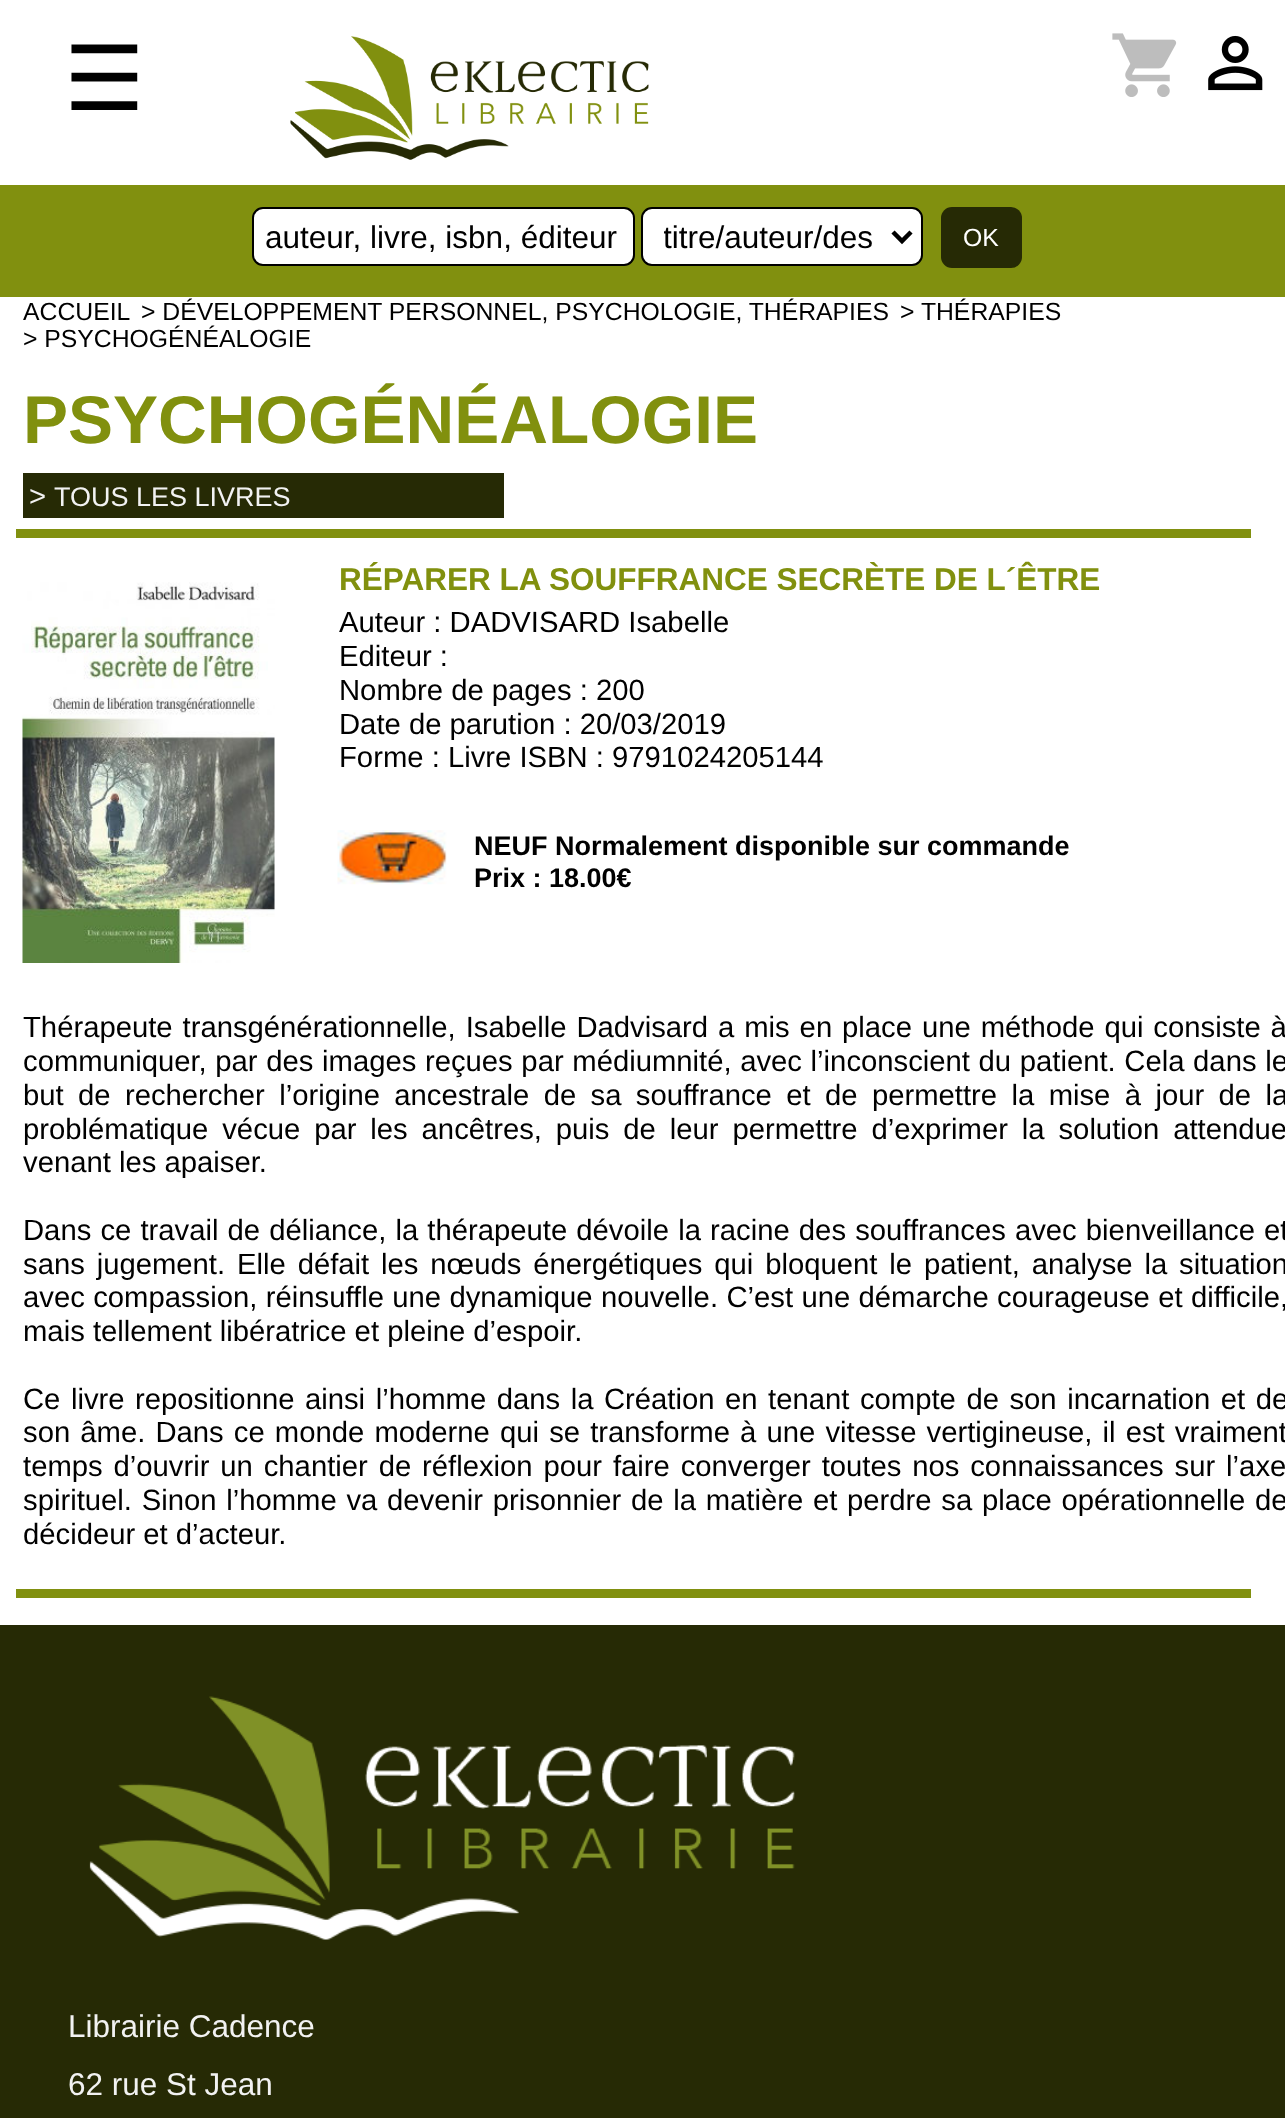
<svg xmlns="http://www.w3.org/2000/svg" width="1285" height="2118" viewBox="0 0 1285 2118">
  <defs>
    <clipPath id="clip1"><rect x="664" y="216" width="209" height="41"/></clipPath>
  </defs>
  <rect width="100%" height="100%" fill="rgb(129,144,15)"/>
  <rect x="0" y="0" width="1285" height="185" fill="rgb(255,255,255)"/>
  <text x="64" y="110" font-family="DejaVu Sans" font-size="90" fill="rgb(0,0,0)">☰</text>
  <image x="290" y="36" width="359" height="124" href="pic1.png"/>
  <image x="1112" y="33" width="65" height="64" href="pic2.png"/>
  <image x="1208" y="35" width="55" height="56" href="pic3.png"/>
  <rect x="253" y="208" width="381" height="57" rx="10" fill="rgb(255,255,255)" stroke="rgb(0,0,0)" stroke-width="2"/>
  <text x="265" y="248" font-family="Liberation Sans" font-size="31.5" fill="rgb(0,0,0)">auteur, livre, isbn, éditeur</text>
  <rect x="642" y="208" width="280" height="57" rx="10" fill="rgb(255,255,255)" stroke="rgb(0,0,0)" stroke-width="2"/>
  <path d="M893 232L902 241L911 232" fill="none" stroke="rgb(0,0,0)" stroke-width="4.5"/>
  <g clip-path="url(#clip1)">
    <text x="663" y="248" font-family="Liberation Sans" font-size="31.5" fill="rgb(0,0,0)">titre/auteur/des</text>
  </g>
  <rect x="941" y="207" width="81" height="61" rx="11" fill="rgb(38,42,5)"/>
  <text x="963" y="246" font-family="Liberation Sans" font-size="24.75" fill="rgb(255,255,255)">OK</text>
  <rect x="0" y="297" width="1285" height="1328" fill="rgb(255,255,255)"/>
  <g font-family="Liberation Sans" font-size="24.75" fill="rgb(0,0,0)">
    <text x="23" y="320">ACCUEIL</text>
    <text x="141" y="320">&gt; DÉVELOPPEMENT PERSONNEL, PSYCHOLOGIE, THÉRAPIES</text>
    <text x="900" y="320">&gt; THÉRAPIES</text>
    <text x="23" y="347">&gt; PSYCHOGÉNÉALOGIE</text>
  </g>
  <text x="23" y="443" font-family="Liberation Sans" font-size="67.5" font-weight="bold" fill="rgb(129,144,14)">PSYCHOGÉNÉALOGIE</text>
  <rect x="23" y="473" width="481" height="45" fill="rgb(38,42,5)"/>
  <text x="29" y="506" font-family="Liberation Sans" font-size="29.25" fill="rgb(242,242,242)">&gt;</text>
  <text x="54" y="506" font-family="Liberation Sans" font-size="27" fill="rgb(242,242,242)">TOUS LES LIVRES</text>
  <rect x="16" y="529" width="1235" height="9" fill="rgb(129,144,15)"/>
  <image x="22" y="582" width="253" height="381" href="pic4.png"/>
  <text x="339" y="590" font-family="Liberation Sans" font-size="31.5" font-weight="bold" fill="rgb(129,144,14)">RÉPARER LA SOUFFRANCE SECRÈTE DE L´ÊTRE</text>
  <g font-family="Liberation Sans" font-size="29.25" fill="rgb(0,0,0)">
    <text>
      <tspan x="339" y="632">Auteur : DADVISARD Isabelle</tspan>
      <tspan x="339" y="666">Editeur :</tspan>
      <tspan x="339" y="700">Nombre de pages : 200</tspan>
      <tspan x="339" y="734">Date de parution : 20/03/2019</tspan>
      <tspan x="339" y="767">Forme : Livre ISBN : 9791024205144</tspan>
    </text>
  </g>
  <image x="337" y="830" width="110" height="55" href="pic5.png"/>
  <g font-family="Liberation Sans" font-size="27" font-weight="bold" fill="rgb(0,0,0)">
    <text>
      <tspan x="474" y="855">NEUF Normalement disponible sur commande</tspan>
      <tspan x="474" y="887">Prix : 18.00€</tspan>
    </text>
  </g>
  <g font-family="Liberation Sans" font-size="29.25" fill="rgb(0,0,0)">
    <text>
      <tspan x="23" y="1037" word-spacing="1.8">Thérapeute transgénérationnelle, Isabelle Dadvisard a mis en place une méthode qui consiste à</tspan>
      <tspan x="23" y="1071" word-spacing="0.5">communiquer, par des images reçues par médiumnité, avec l’inconscient du patient. Cela dans le</tspan>
      <tspan x="23" y="1105" word-spacing="6.25">but de rechercher l’origine ancestrale de sa souffrance et de permettre la mise à jour de la</tspan>
      <tspan x="23" y="1139" word-spacing="5.75">problématique vécue par les ancêtres, puis de leur permettre d’exprimer la solution attendue</tspan>
      <tspan x="23" y="1172">venant les apaiser.</tspan>
    </text>
    <text>
      <tspan x="23" y="1240" word-spacing="1">Dans ce travail de déliance, la thérapeute dévoile la racine des souffrances avec bienveillance et</tspan>
      <tspan x="23" y="1274" word-spacing="3.75">sans jugement. Elle défait les nœuds énergétiques qui bloquent le patient, analyse la situation</tspan>
      <tspan x="23" y="1307" word-spacing="0.25">avec compassion, réinsuffle une dynamique nouvelle. C’est une démarche courageuse et difficile,</tspan>
      <tspan x="23" y="1341">mais tellement libératrice et pleine d’espoir.</tspan>
    </text>
    <text>
      <tspan x="23" y="1409" word-spacing="2.4">Ce livre repositionne ainsi l’homme dans la Création en tenant compte de son incarnation et de</tspan>
      <tspan x="23" y="1442" word-spacing="2">son âme. Dans ce monde moderne qui se transforme à une vitesse vertigineuse, il est vraiment</tspan>
      <tspan x="23" y="1476" word-spacing="2.75">temps d’ouvrir un chantier de réflexion pour faire converger toutes nos connaissances sur l’axe</tspan>
      <tspan x="23" y="1510" word-spacing="1.6">spirituel. Sinon l’homme va devenir prisonnier de la matière et perdre sa place opérationnelle de</tspan>
      <tspan x="23" y="1544">décideur et d’acteur.</tspan>
    </text>
  </g>
  <rect x="16" y="1589" width="1235" height="9" fill="rgb(129,144,15)"/>
  <rect x="0" y="1625" width="1285" height="493" fill="rgb(38,42,5)"/>
  <image x="89" y="1696" width="706" height="244" href="pic6.png"/>
  <g font-family="Liberation Sans" font-size="31.5" fill="rgb(242,242,242)">
    <text>
      <tspan x="68" y="2037">Librairie Cadence</tspan>
      <tspan x="68" y="2095">62 rue St Jean</tspan>
    </text>
  </g>
</svg>
